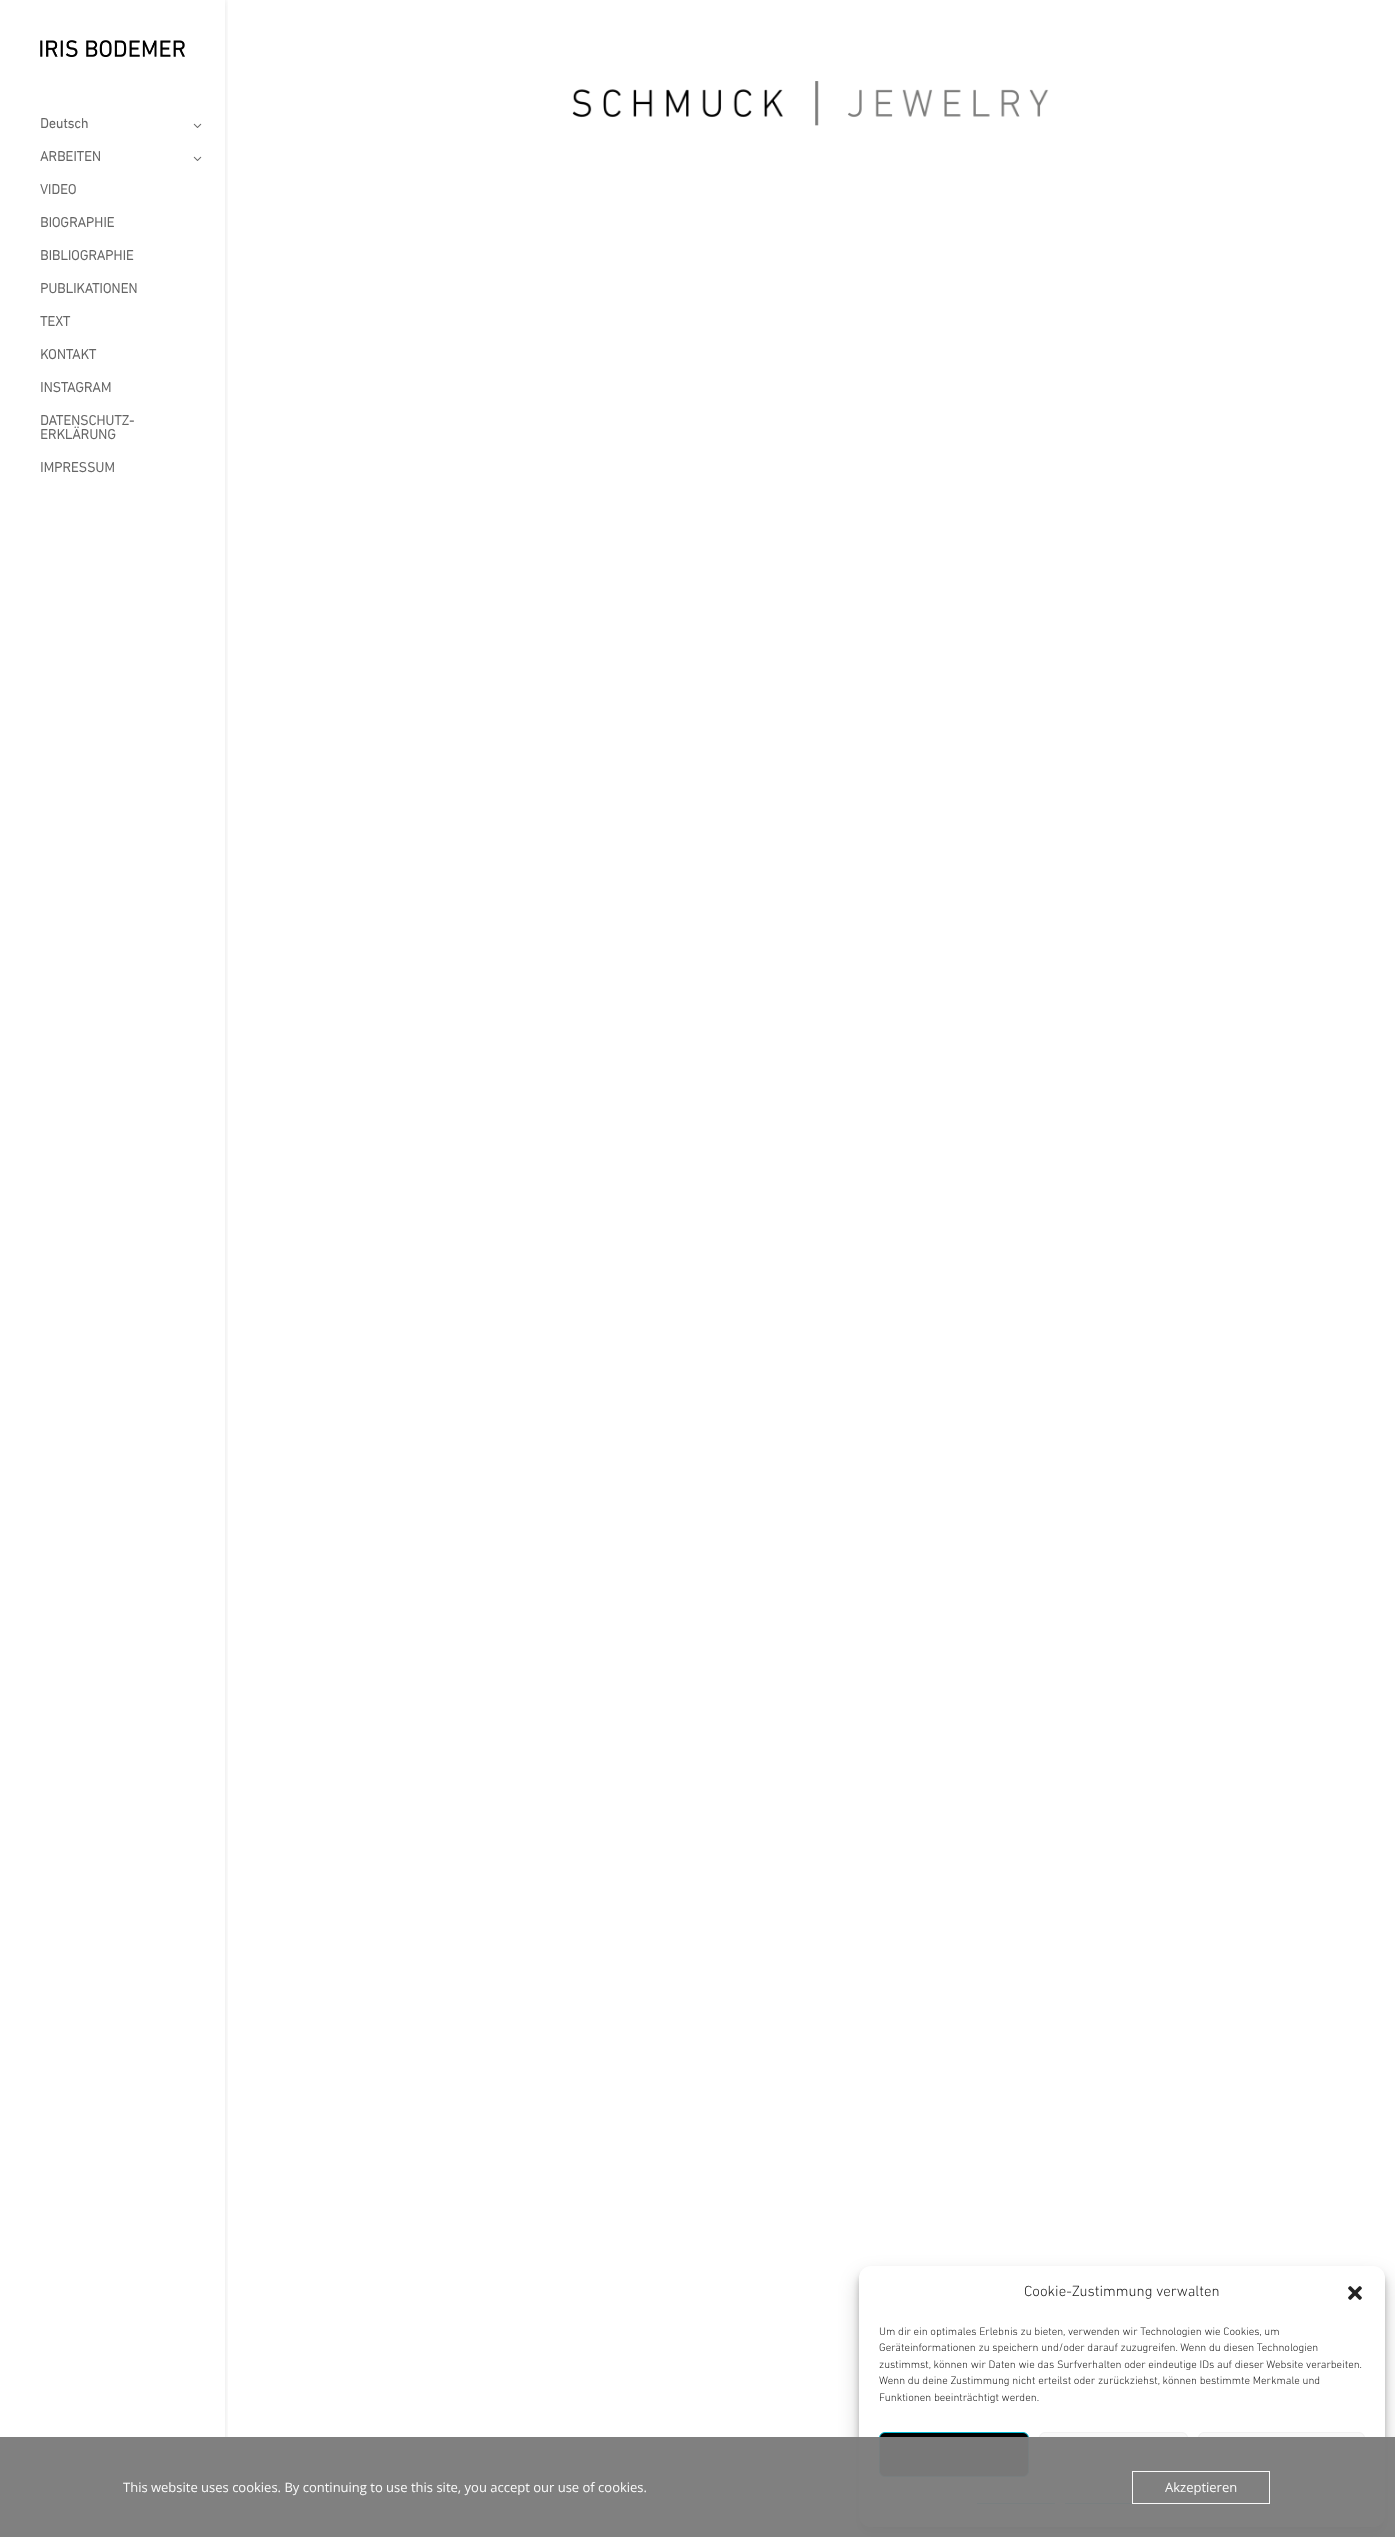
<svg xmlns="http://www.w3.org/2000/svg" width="1395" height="2537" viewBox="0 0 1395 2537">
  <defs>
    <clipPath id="clip1"><rect x="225" y="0" width="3" height="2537"/></clipPath>
  </defs>
  <rect width="100%" height="100%" fill="rgb(255,255,255)"/>
  <image x="572" y="81" width="477" height="45" href="pic1.png"/>
  <g clip-path="url(#clip1)">
    <rect x="0" y="0" width="225" height="2537" fill="rgba(0,0,0,0.1)" filter="blur(3.5px)"/>
  </g>
  <image x="40" y="40" width="145" height="17" href="pic2.png"/>
  <text x="40" y="128" font-family="DIN Next" font-size="14" font-weight="bold" fill="rgb(102,102,102)">Deutsch</text>
  <image x="193" y="123" width="9" height="5" href="pic3.png"/>
  <text x="40" y="161" font-family="DIN Next" font-size="14" font-weight="bold" fill="rgb(102,102,102)">ARBEITEN</text>
  <image x="193" y="156" width="9" height="5" href="pic3.png"/>
  <g font-family="DIN Next" font-size="14" font-weight="bold" fill="rgb(102,102,102)">
    <text x="40" y="194">VIDEO</text>
    <text x="40" y="227">BIOGRAPHIE</text>
    <text x="40" y="260">BIBLIOGRAPHIE</text>
    <text x="40" y="293">PUBLIKATIONEN</text>
    <text x="40" y="326">TEXT</text>
    <text x="40" y="359">KONTAKT</text>
    <text x="40" y="392">INSTAGRAM</text>
    <text>
      <tspan x="40" y="425">DATENSCHUTZ-</tspan>
      <tspan x="40" y="439">ERKLÄRUNG</tspan>
    </text>
    <text x="40" y="472">IMPRESSUM</text>
  </g>
  <rect x="859" y="2272" width="526" height="261" rx="12" fill="rgba(0,0,0,0.23)" filter="blur(3px)"/>
  <rect x="859" y="2276" width="526" height="261" rx="12" fill="rgba(0,0,0,0.19)" filter="blur(10px)"/>
  <rect x="859" y="2266" width="526" height="261" rx="12" fill="rgb(255,255,255)"/>
  <text x="1024" y="2296" font-family="DIN Next" font-size="15" font-weight="300" fill="rgb(34,34,34)">Cookie-Zustimmung verwalten</text>
  <image x="1348" y="2286" width="14" height="14" href="pic4.png"/>
  <g font-family="DIN Next" font-size="11" font-weight="300" fill="rgb(34,34,34)">
    <text>
      <tspan x="879" y="2335">Um dir ein optimales Erlebnis zu bieten, verwenden wir Technologien wie Cookies, um</tspan>
      <tspan x="879" y="2351">Geräteinformationen zu speichern und/oder darauf zuzugreifen. Wenn du diesen Technologien</tspan>
      <tspan x="879" y="2368">zustimmst, können wir Daten wie das Surfverhalten oder eindeutige IDs auf dieser Website verarbeiten.</tspan>
      <tspan x="879" y="2384">Wenn du deine Zustimmung nicht erteilst oder zurückziehst, können bestimmte Merkmale und</tspan>
      <tspan x="879" y="2401">Funktionen beeinträchtigt werden.</tspan>
    </text>
  </g>
  <rect x="879.5" y="2432.5" width="149" height="44" rx="5.5" fill="rgb(0,0,0)" stroke="rgb(0,191,216)"/>
  <rect x="1039.5" y="2432.5" width="148" height="44" rx="5.5" fill="rgb(249,249,249)" stroke="rgb(242,242,242)"/>
  <rect x="1198.5" y="2432.5" width="166" height="44" rx="5.5" fill="rgb(249,249,249)" stroke="rgb(242,242,242)"/>
  <rect x="977" y="2503" width="78" height="1" fill="rgb(0,191,216)"/>
  <rect x="1065" y="2503" width="134" height="1" fill="rgb(0,191,216)"/>
  <rect x="1209" y="2503" width="58" height="1" fill="rgb(0,191,216)"/>
  <rect x="0" y="2437" width="1395" height="100" fill="rgba(124,124,124,0.97)"/>
  <text x="123" y="2492" font-family="Open Sans" font-size="13" fill="rgb(251,251,251)">This website uses cookies. By continuing to use this site, you accept our use of cookies.</text>
  <rect x="1132.5" y="2471.5" width="137" height="32" fill="none" stroke="rgba(255,255,255,0.97)"/>
  <text x="1165" y="2492" font-family="Open Sans" font-size="13" fill="rgb(251,251,251)">Akzeptieren</text>
</svg>
